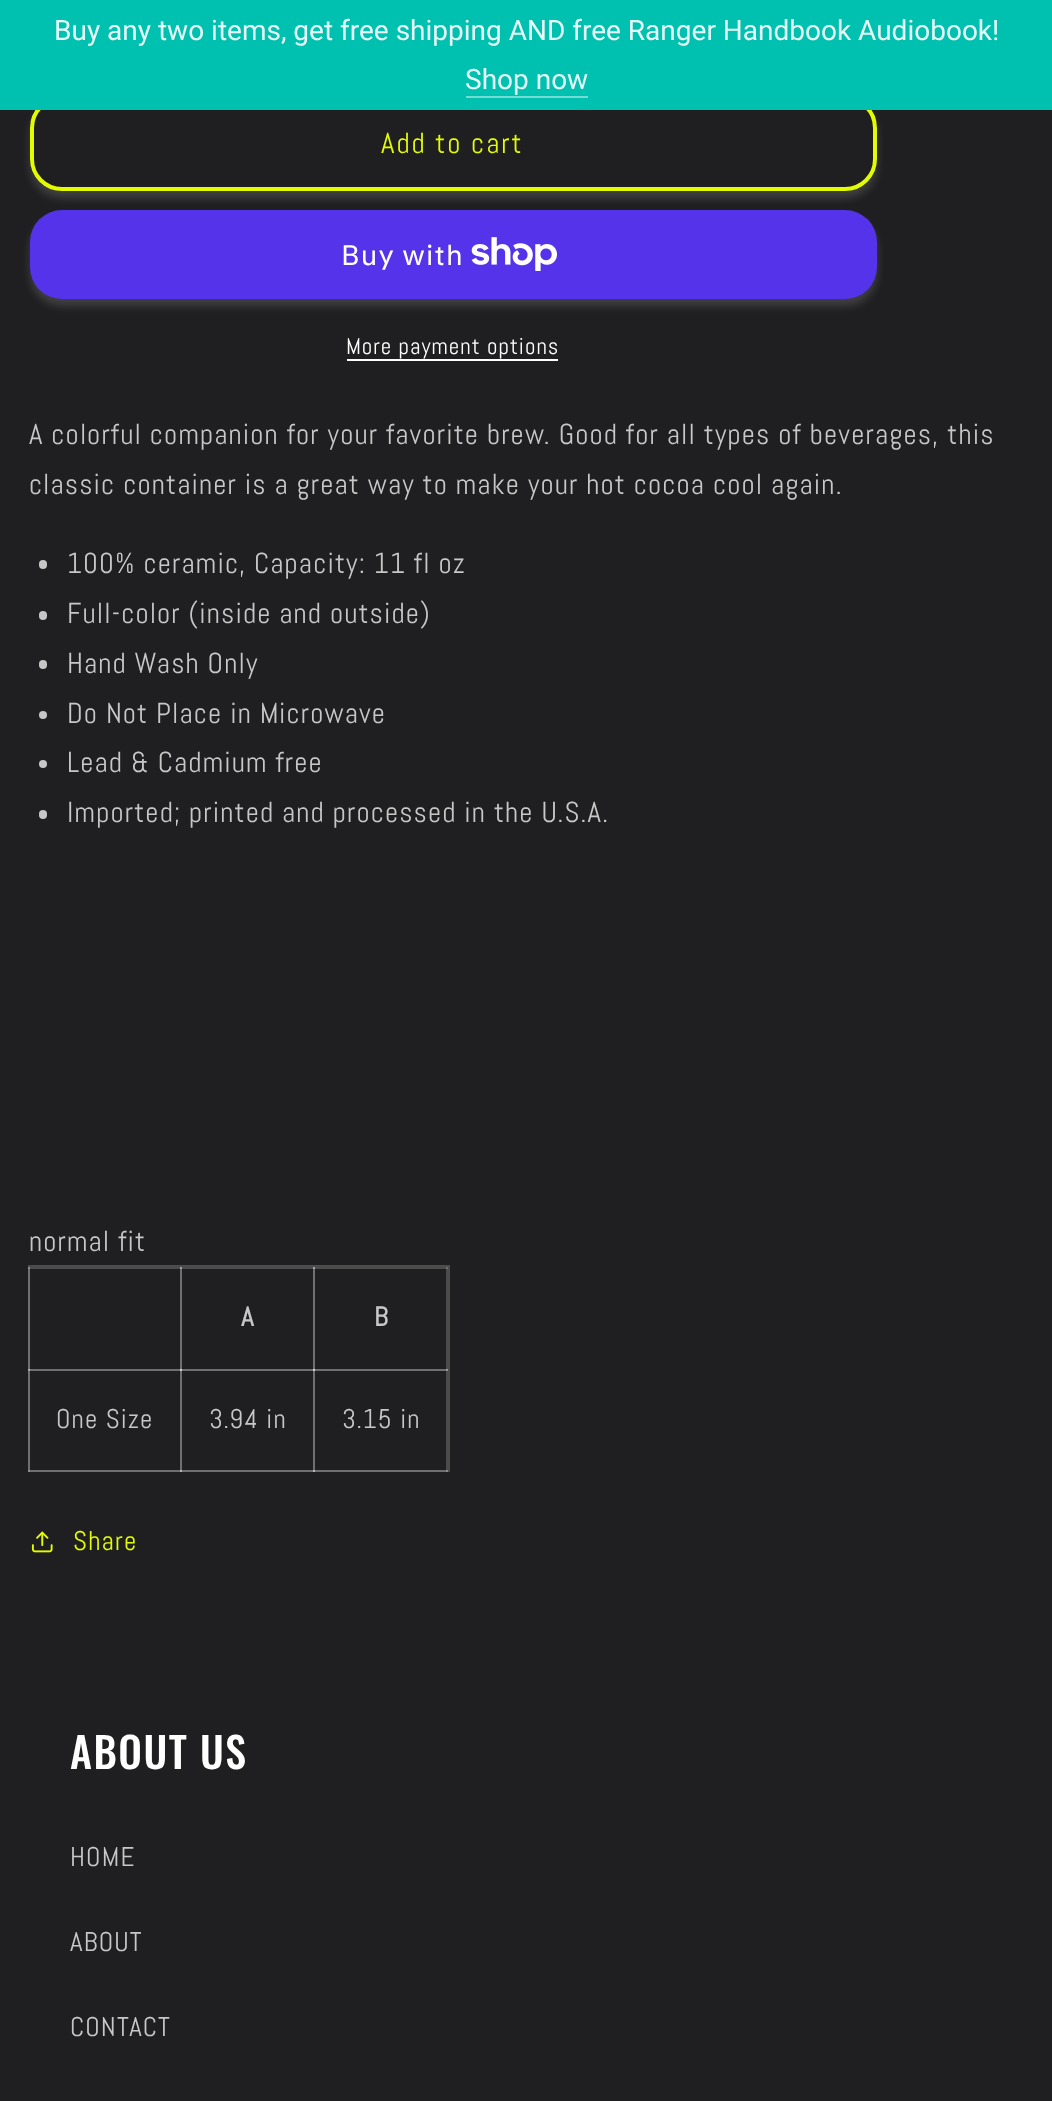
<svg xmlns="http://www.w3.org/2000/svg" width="1052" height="2101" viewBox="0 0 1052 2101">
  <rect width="100%" height="100%" fill="rgb(31,31,33)"/>
  <rect x="30" y="103" width="847" height="95" rx="32" fill="rgba(255,255,255,0.15)" filter="blur(4.5px)"/>
  <rect x="30" y="96" width="847" height="95" rx="32" fill="rgb(31,31,33)"/>
  <rect x="32" y="98" width="843" height="91" rx="30" fill="none" stroke="rgb(31,31,33)" stroke-width="4"/>
  <rect x="32" y="98" width="843" height="91" rx="30" fill="none" stroke="rgb(227,252,2)" stroke-width="4"/>
  <rect x="0" y="0" width="1052" height="110" fill="rgb(0,192,175)"/>
  <g font-family="Roboto" font-size="28" fill="rgb(230,249,247)">
    <text x="54" y="40">Buy any two items, get free shipping AND free Ranger Handbook Audiobook!</text>
    <text x="465" y="89">Shop now</text>
  </g>
  <rect x="466" y="96" width="122" height="2" fill="rgb(115,221,211)"/>
  <text x="381" y="153" font-family="Abel" font-size="28.9" letter-spacing="2" fill="rgb(227,252,2)">Add to cart</text>
  <rect x="30" y="217" width="847" height="89" rx="32" fill="rgba(255,255,255,0.15)" filter="blur(4.5px)"/>
  <rect x="30" y="210" width="847" height="89" rx="32" fill="rgb(84,51,235)"/>
  <text x="341" y="265" font-family="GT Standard" font-size="28" letter-spacing="1.15" fill="rgb(255,255,255)">Buy with</text>
  <image x="471" y="237" width="86" height="34" href="pic1.png"/>
  <text x="346" y="354" font-family="Abel" font-size="23" letter-spacing="1" fill="rgb(255,255,255)">More payment options</text>
  <rect x="347" y="359" width="211" height="2" fill="rgb(255,255,255)"/>
  <g font-family="Abel" font-size="28.9" letter-spacing="1.15" fill="rgb(199,199,200)">
    <text>
      <tspan x="29" y="444">A colorful companion for your favorite brew. Good for all types of beverages, this</tspan>
      <tspan x="29" y="494">classic container is a great way to make your hot cocoa cool again.</tspan>
    </text>
  </g>
  <rect x="39" y="560" width="8" height="9" rx="4" fill="rgb(199,199,200)"/>
  <text x="67" y="573" font-family="Abel" font-size="28.9" letter-spacing="1.15" fill="rgb(199,199,200)">100% ceramic, Capacity: 11 fl oz</text>
  <rect x="39" y="611" width="8" height="9" rx="4" fill="rgb(199,199,200)"/>
  <text x="67" y="623" font-family="Abel" font-size="28.9" letter-spacing="1.15" fill="rgb(199,199,200)">Full-color (inside and outside)</text>
  <rect x="39" y="660" width="8" height="9" rx="4" fill="rgb(199,199,200)"/>
  <text x="67" y="673" font-family="Abel" font-size="28.9" letter-spacing="1.15" fill="rgb(199,199,200)">Hand Wash Only</text>
  <circle cx="43" cy="715" r="4" fill="rgb(199,199,200)"/>
  <text x="67" y="723" font-family="Abel" font-size="28.9" letter-spacing="1.15" fill="rgb(199,199,200)">Do Not Place in Microwave</text>
  <circle cx="43" cy="764" r="4" fill="rgb(199,199,200)"/>
  <text x="67" y="772" font-family="Abel" font-size="28.9" letter-spacing="1.15" fill="rgb(199,199,200)">Lead &amp; Cadmium free</text>
  <rect x="39" y="810" width="8" height="9" rx="4" fill="rgb(199,199,200)"/>
  <g font-family="Abel" font-size="28.9" letter-spacing="1.15" fill="rgb(199,199,200)">
    <text x="67" y="822">Imported; printed and processed in the U.S.A.</text>
    <text x="29" y="1251">normal fit</text>
  </g>
  <rect x="29" y="1266" width="420" height="205" fill="none" stroke="rgb(76,76,77)" stroke-width="2"/>
  <rect x="313" y="1267" width="135" height="2" fill="rgb(76,76,77)"/>
  <rect x="313" y="1369" width="135" height="2" fill="rgb(76,76,77)"/>
  <rect x="446" y="1369" width="2" height="103" fill="rgba(255,255,255,0.2)"/>
  <rect x="446" y="1267" width="2" height="103" fill="rgba(255,255,255,0.2)"/>
  <rect x="313" y="1470" width="135" height="2" fill="rgba(255,255,255,0.2)"/>
  <rect x="313" y="1369" width="2" height="103" fill="rgba(255,255,255,0.2)"/>
  <rect x="180" y="1369" width="135" height="2" fill="rgba(255,255,255,0.2)"/>
  <rect x="313" y="1369" width="2" height="103" fill="rgba(255,255,255,0.2)"/>
  <rect x="313" y="1369" width="135" height="2" fill="rgba(255,255,255,0.2)"/>
  <rect x="313" y="1267" width="2" height="103" fill="rgba(255,255,255,0.2)"/>
  <rect x="180" y="1267" width="135" height="2" fill="rgba(255,255,255,0.2)"/>
  <rect x="313" y="1267" width="2" height="103" fill="rgba(255,255,255,0.2)"/>
  <rect x="180" y="1470" width="135" height="2" fill="rgba(255,255,255,0.2)"/>
  <rect x="180" y="1369" width="2" height="103" fill="rgba(255,255,255,0.2)"/>
  <rect x="28" y="1369" width="154" height="2" fill="rgba(255,255,255,0.2)"/>
  <rect x="180" y="1369" width="2" height="103" fill="rgba(255,255,255,0.2)"/>
  <rect x="180" y="1369" width="135" height="2" fill="rgba(255,255,255,0.2)"/>
  <rect x="180" y="1267" width="2" height="103" fill="rgba(255,255,255,0.2)"/>
  <rect x="28" y="1267" width="154" height="2" fill="rgba(255,255,255,0.2)"/>
  <rect x="180" y="1267" width="2" height="103" fill="rgba(255,255,255,0.2)"/>
  <rect x="28" y="1470" width="154" height="2" fill="rgba(255,255,255,0.2)"/>
  <rect x="28" y="1369" width="2" height="103" fill="rgba(255,255,255,0.2)"/>
  <rect x="28" y="1369" width="154" height="2" fill="rgba(255,255,255,0.2)"/>
  <rect x="28" y="1267" width="2" height="103" fill="rgba(255,255,255,0.2)"/>
  <g font-family="Abel" font-size="27" font-weight="bold" letter-spacing="1.15" fill="rgb(199,199,200)">
    <text x="241" y="1326">A</text>
    <text x="374" y="1326">B</text>
  </g>
  <g font-family="Abel" font-size="27" letter-spacing="1.15" fill="rgb(199,199,200)">
    <text x="56" y="1428">One Size</text>
    <text x="209" y="1428">3.94 in</text>
    <text x="342" y="1428">3.15 in</text>
  </g>
  <image x="31" y="1531" width="22" height="22" href="pic2.png"/>
  <text x="73" y="1550" font-family="Abel" font-size="27" letter-spacing="1.15" fill="rgb(227,252,2)">Share</text>
  <text x="70" y="1769" font-family="Oswald" font-size="42" font-weight="500" letter-spacing="1.5" fill="rgb(255,255,255)">ABOUT US</text>
  <g font-family="Abel" font-size="27" letter-spacing="1.15" fill="rgb(199,199,200)">
    <text x="70" y="1866">HOME</text>
    <text x="70" y="1951">ABOUT</text>
    <text x="70" y="2036">CONTACT</text>
  </g>
</svg>
